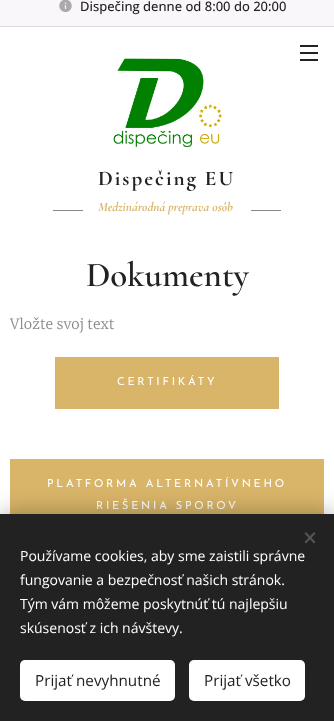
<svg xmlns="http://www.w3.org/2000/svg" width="334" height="721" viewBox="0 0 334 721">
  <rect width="100%" height="100%" fill="rgb(255,255,255)"/>
  <rect x="0" y="0" width="334" height="26" fill="rgb(249,247,250)"/>
  <image x="59" y="0" width="13" height="12" href="pic1.png"/>
  <text x="80" y="11" font-family="Open Sans" font-size="13" font-weight="500" fill="rgb(34,34,34)">Dispečing denne od 8:00 do 20:00</text>
  <rect x="0" y="26" width="334" height="1" fill="rgb(219,219,219)"/>
  <rect x="300" y="52" width="18" height="2" fill="rgb(34,34,34)"/>
  <rect x="300" y="45" width="18" height="2" fill="rgb(34,34,34)"/>
  <rect x="300" y="59" width="18" height="2" fill="rgb(34,34,34)"/>
  <image x="113" y="58" width="109" height="90" href="pic2.png"/>
  <text x="98" y="185" font-family="Cormorant" font-size="21" font-weight="bold" letter-spacing="2" fill="rgb(34,34,34)">Dispečing EU</text>
  <rect x="53" y="210" width="30" height="1" fill="rgb(136,136,136)"/>
  <text x="98" y="211" font-family="Cormorant" font-size="13" font-weight="bold" font-style="italic" fill="rgb(217,181,105)">Medzinárodná preprava osôb</text>
  <rect x="251" y="210" width="30" height="1" fill="rgb(136,136,136)"/>
  <text x="86" y="286" font-family="Cormorant" font-size="35" font-weight="600" fill="rgb(34,34,34)">Dokumenty</text>
  <text x="10" y="329" font-family="Merriweather" font-size="14" font-weight="300" fill="rgb(136,136,136)">Vložte svoj text</text>
  <rect x="55" y="357" width="224" height="52" fill="rgb(217,181,105)"/>
  <text x="117" y="385" font-family="Josefin Sans" font-size="11" letter-spacing="2.75" fill="rgb(255,255,255)">CERTIFIKÁTY</text>
  <rect x="10" y="459" width="314" height="55" fill="rgb(217,181,105)"/>
  <g font-family="Josefin Sans" font-size="11" letter-spacing="2.75" fill="rgb(255,255,255)">
    <text x="47" y="487">PLATFORMA ALTERNATÍVNEHO</text>
    <text x="96" y="509">RIEŠENIA SPOROV</text>
  </g>
  <rect x="0" y="514" width="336" height="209" fill="rgba(0,0,0,0.33)" filter="blur(12.5px)"/>
  <rect x="0" y="514" width="334" height="207" fill="rgb(34,34,34)"/>
  <path d="M304.5 542L314 532L315.5 533.5L306 543.5Z" fill="rgb(85,85,85)"/>
  <path d="M306 532L315.5 542L314 543.5L304.5 533.5Z" fill="rgb(85,85,85)"/>
  <g font-family="Open Sans" font-size="14" fill="rgb(255,255,255)">
    <text>
      <tspan x="20" y="561">Používame cookies, aby sme zaistili správne</tspan>
      <tspan x="20" y="585">fungovanie a bezpečnosť našich stránok.</tspan>
      <tspan x="20" y="609">Tým vám môžeme poskytnúť tú najlepšiu</tspan>
      <tspan x="20" y="633">skúsenosť z ich návštevy.</tspan>
    </text>
  </g>
  <rect x="20" y="660" width="155" height="41" rx="5" fill="rgb(255,255,255)"/>
  <text x="35" y="686" font-family="Open Sans" font-size="15.25" fill="rgb(34,34,34)">Prijať nevyhnutné</text>
  <rect x="189" y="660" width="116" height="41" rx="5" fill="rgb(255,255,255)"/>
  <text x="204" y="686" font-family="Open Sans" font-size="15.25" fill="rgb(34,34,34)">Prijať všetko</text>
</svg>
